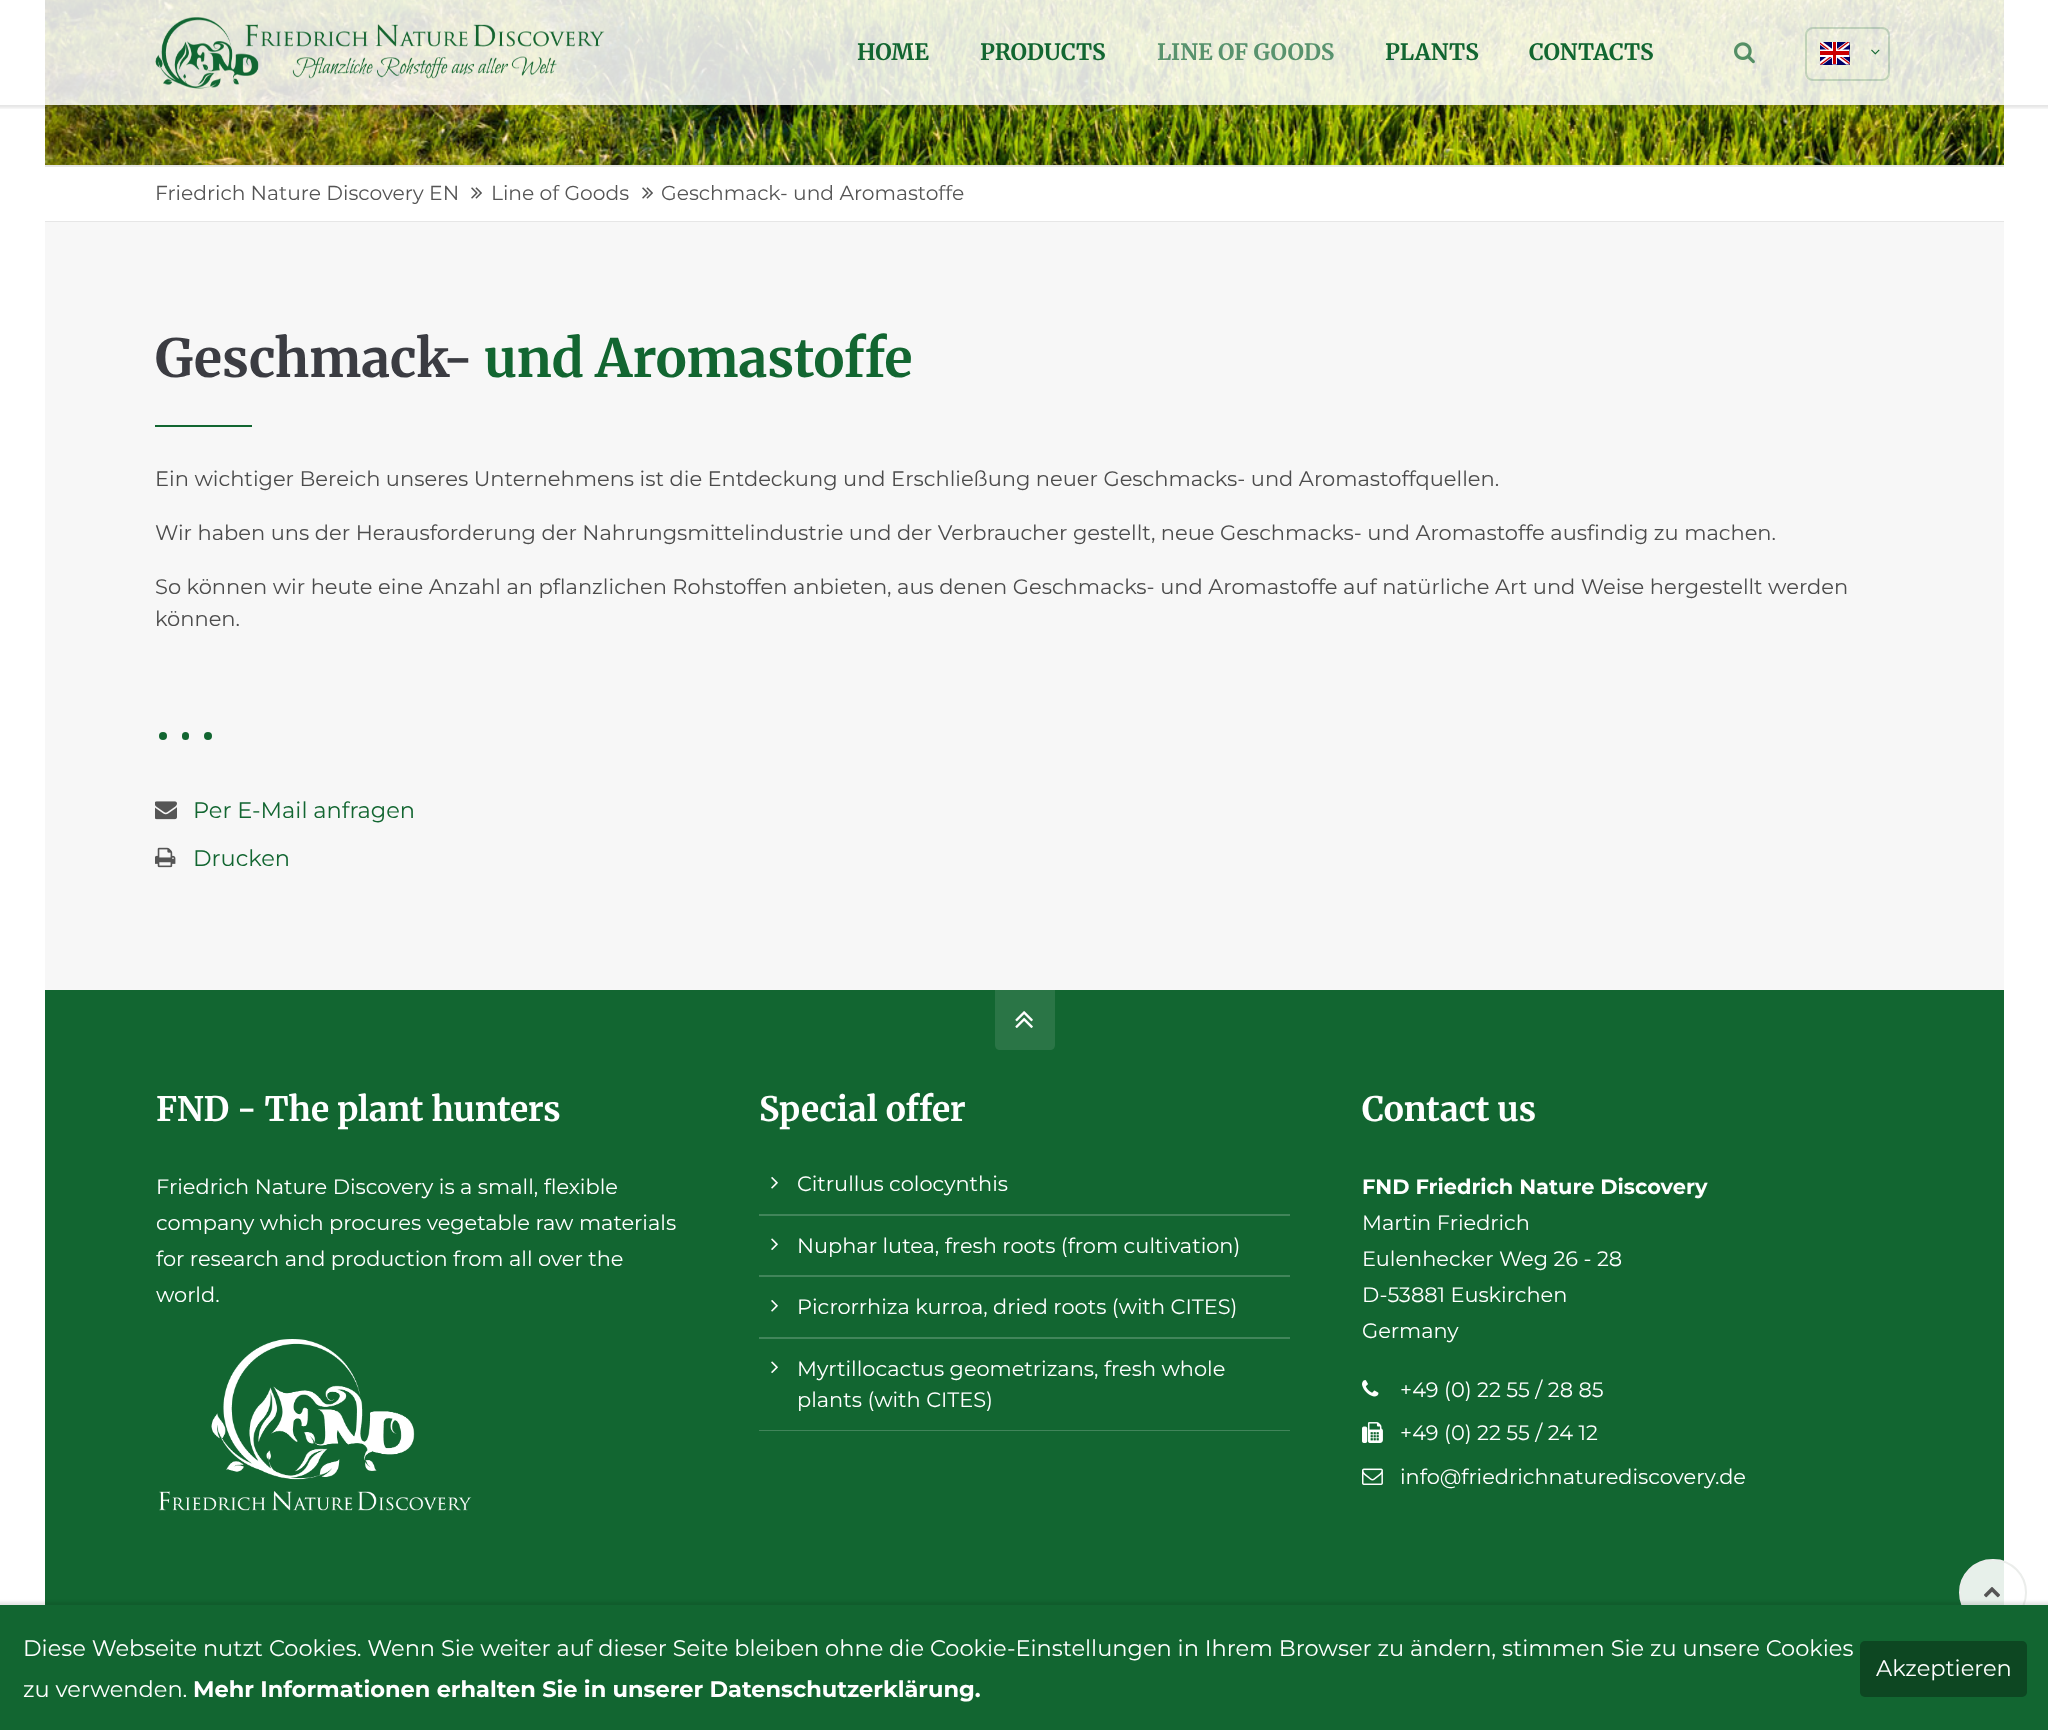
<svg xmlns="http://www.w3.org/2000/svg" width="2048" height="1730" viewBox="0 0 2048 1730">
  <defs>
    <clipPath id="clip1"><rect x="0" y="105" width="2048" height="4"/></clipPath>
  </defs>
  <rect width="100%" height="100%" fill="rgb(255,255,255)"/>
  <image x="45" y="0" width="1959" height="165" href="pic5.png"/>
  <g clip-path="url(#clip1)">
    <rect x="-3" y="-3" width="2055" height="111" fill="rgba(0,0,0,0.1)" filter="blur(1.5px)"/>
  </g>
  <rect x="45" y="0" width="1959" height="105" fill="rgba(255,255,255,0.85)"/>
  <image x="155" y="17" width="450" height="72" href="pic1.png"/>
  <g font-family="'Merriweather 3'" font-size="22.5" font-weight="bold" fill="rgb(18,102,49)">
    <text x="857" y="60">HOME</text>
    <text x="980" y="60">PRODUCTS</text>
  </g>
  <text x="1157" y="60" font-family="'Merriweather 3'" font-size="22.5" font-weight="bold" fill="rgb(89,147,110)">LINE OF GOODS</text>
  <g font-family="'Merriweather 3'" font-size="22.5" font-weight="bold" fill="rgb(18,102,49)">
    <text x="1385" y="60">PLANTS</text>
    <text x="1529" y="60">CONTACTS</text>
  </g>
  <image x="1734" y="42" width="21" height="22" href="pic2.png"/>
  <image x="1820" y="42" width="30" height="23" href="pic3.png"/>
  <rect x="1806" y="28" width="83" height="52" rx="7" fill="none" stroke="rgba(18,102,49,0.2)" stroke-width="2"/>
  <image x="1871" y="49" width="9" height="6" href="pic4.png"/>
  <rect x="45" y="165" width="1959" height="2" fill="rgb(230,230,230)"/>
  <rect x="45" y="221" width="1959" height="1" fill="rgb(230,230,230)"/>
  <text x="155" y="200" font-family="Montserrat" font-size="20.25" fill="rgb(85,85,85)">Friedrich Nature Discovery EN</text>
  <image x="471" y="187" width="11" height="12" href="pic6.png"/>
  <text x="491" y="200" font-family="Montserrat" font-size="20.25" fill="rgb(85,85,85)">Line of Goods</text>
  <image x="642" y="187" width="11" height="12" href="pic6.png"/>
  <text x="661" y="200" font-family="Montserrat" font-size="20.25" fill="rgb(85,85,85)">Geschmack- und Aromastoffe</text>
  <rect x="45" y="222" width="1959" height="768" fill="rgb(247,247,247)"/>
  <text x="155" y="377" font-family="'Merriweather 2'" font-size="52.5" font-weight="bold" fill="rgb(59,60,66)">Geschmack-</text>
  <text x="484" y="377" font-family="'Merriweather 2'" font-size="52.5" font-weight="bold" fill="rgb(18,102,49)">und Aromastoffe</text>
  <rect x="155" y="425" width="97" height="2" fill="rgb(18,102,49)"/>
  <g font-family="Montserrat" font-size="21" fill="rgb(76,76,76)">
    <text x="155" y="486">Ein wichtiger Bereich unseres Unternehmens ist die Entdeckung und Erschließung neuer Geschmacks- und Aromastoffquellen.</text>
    <text x="155" y="540">Wir haben uns der Herausforderung der Nahrungsmittelindustrie und der Verbraucher gestellt, neue Geschmacks- und Aromastoffe ausfindig zu machen.</text>
    <text>
      <tspan x="155" y="594">So können wir heute eine Anzahl an pflanzlichen Rohstoffen anbieten, aus denen Geschmacks- und Aromastoffe auf natürliche Art und Weise hergestellt werden</tspan>
      <tspan x="155" y="626">können.</tspan>
    </text>
  </g>
  <circle cx="163" cy="736" r="4" fill="rgb(18,102,49)"/>
  <rect x="182" y="732" width="7" height="8" rx="3.5" fill="rgb(18,102,49)"/>
  <circle cx="208" cy="736" r="4" fill="rgb(18,102,49)"/>
  <image x="155" y="801" width="22" height="19" href="pic7.png"/>
  <text x="193" y="818" font-family="Montserrat" font-size="22.5" fill="rgb(18,102,49)">Per E-Mail anfragen</text>
  <image x="155" y="847" width="21" height="21" href="pic8.png"/>
  <text x="193" y="866" font-family="Montserrat" font-size="22.5" fill="rgb(18,102,49)">Drucken</text>
  <rect x="45" y="990" width="1959" height="615" fill="rgb(18,102,49)"/>
  <path d="M995 990H1055V1045C1055 1048 1053 1050 1050 1050H1000C997 1050 995 1048 995 1045Z" fill="rgb(42,117,70)"/>
  <image x="1015" y="1011" width="18" height="17" href="pic9.png"/>
  <text x="156" y="1121" font-family="Merriweather" font-size="33.75" font-weight="bold" fill="rgb(255,255,255)">FND - The plant hunters</text>
  <g font-family="Montserrat" font-size="20.9" fill="rgb(255,255,255)">
    <text>
      <tspan x="156" y="1194">Friedrich Nature Discovery is a small, flexible</tspan>
      <tspan x="156" y="1230">company which procures vegetable raw materials</tspan>
      <tspan x="156" y="1266">for research and production from all over the</tspan>
      <tspan x="156" y="1302">world.</tspan>
    </text>
  </g>
  <image x="159" y="1339" width="313" height="172" href="pic10.png"/>
  <text x="759" y="1121" font-family="Merriweather" font-size="33.75" font-weight="bold" fill="rgb(255,255,255)">Special offer</text>
  <image x="771" y="1177" width="7" height="12" href="pic11.png"/>
  <text x="797" y="1191" font-family="Montserrat" font-size="20.9" fill="rgb(255,255,255)">Citrullus colocynthis</text>
  <rect x="759" y="1214" width="531" height="2" fill="rgb(65,133,90)"/>
  <image x="771" y="1238" width="7" height="12" href="pic12.png"/>
  <text x="797" y="1253" font-family="Montserrat" font-size="20.9" fill="rgb(255,255,255)">Nuphar lutea, fresh roots (from cultivation)</text>
  <rect x="759" y="1275" width="531" height="2" fill="rgb(65,133,90)"/>
  <image x="771" y="1300" width="7" height="12" href="pic11.png"/>
  <text x="797" y="1314" font-family="Montserrat" font-size="20.9" fill="rgb(255,255,255)">Picrorrhiza kurroa, dried roots (with CITES)</text>
  <rect x="759" y="1337" width="531" height="2" fill="rgb(65,133,90)"/>
  <image x="771" y="1361" width="7" height="12" href="pic12.png"/>
  <g font-family="Montserrat" font-size="20.9" fill="rgb(255,255,255)">
    <text>
      <tspan x="797" y="1376">Myrtillocactus geometrizans, fresh whole</tspan>
      <tspan x="797" y="1407">plants (with CITES)</tspan>
    </text>
  </g>
  <rect x="759" y="1430" width="531" height="1" fill="rgb(65,133,90)"/>
  <text x="1362" y="1121" font-family="Merriweather" font-size="33.75" font-weight="bold" fill="rgb(255,255,255)">Contact us</text>
  <text x="1362" y="1194" font-family="Montserrat" font-size="20.9" font-weight="bold" fill="rgb(255,255,255)">FND Friedrich Nature Discovery</text>
  <g font-family="Montserrat" font-size="20.9" fill="rgb(255,255,255)">
    <text>
      <tspan x="1362" y="1230">Martin Friedrich</tspan>
      <tspan x="1362" y="1266">Eulenhecker Weg 26 - 28</tspan>
      <tspan x="1362" y="1302">D-53881 Euskirchen</tspan>
      <tspan x="1362" y="1338">Germany</tspan>
    </text>
  </g>
  <image x="1362" y="1380" width="17" height="17" href="pic13.png"/>
  <text x="1400" y="1397" font-family="Montserrat" font-size="20.9" fill="rgb(255,255,255)">+49 (0) 22 55 / 28 85</text>
  <image x="1362" y="1422" width="21" height="21" href="pic14.png"/>
  <text x="1400" y="1440" font-family="Montserrat" font-size="20.9" fill="rgb(255,255,255)">+49 (0) 22 55 / 24 12</text>
  <image x="1362" y="1468" width="21" height="17" href="pic15.png"/>
  <text x="1400" y="1484" font-family="Montserrat" font-size="20.9" fill="rgb(255,255,255)">info@friedrichnaturediscovery.de</text>
  <rect x="1960" y="1560" width="66" height="65" rx="32.5" fill="rgba(255,255,255,0.9)" stroke="rgb(235,237,235)" stroke-width="2"/>
  <image x="1984" y="1587" width="16" height="11" href="pic16.png"/>
  <rect x="-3" y="1602" width="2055" height="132" fill="rgba(0,0,0,0.1)" filter="blur(1.5px)"/>
  <rect x="0" y="1605" width="2048" height="125" fill="rgb(18,102,49)"/>
  <text x="23" y="1656" font-family="Montserrat" font-size="22.5" fill="rgb(255,255,255)">Diese Webseite nutzt Cookies. Wenn Sie weiter auf dieser Seite bleiben ohne die Cookie-Einstellungen in Ihrem Browser zu ändern, stimmen Sie zu unsere Cookies</text>
  <rect x="1860" y="1641" width="167" height="56" rx="5" fill="rgb(13,71,34)"/>
  <g font-family="Montserrat" font-size="22.5" fill="rgb(255,255,255)">
    <text x="1876" y="1676">Akzeptieren</text>
    <text x="23" y="1697">zu verwenden.</text>
  </g>
  <text x="193" y="1697" font-family="Montserrat" font-size="22.5" font-weight="bold" fill="rgb(255,255,255)">Mehr Informationen erhalten Sie in unserer Datenschutzerklärung.</text>
</svg>
